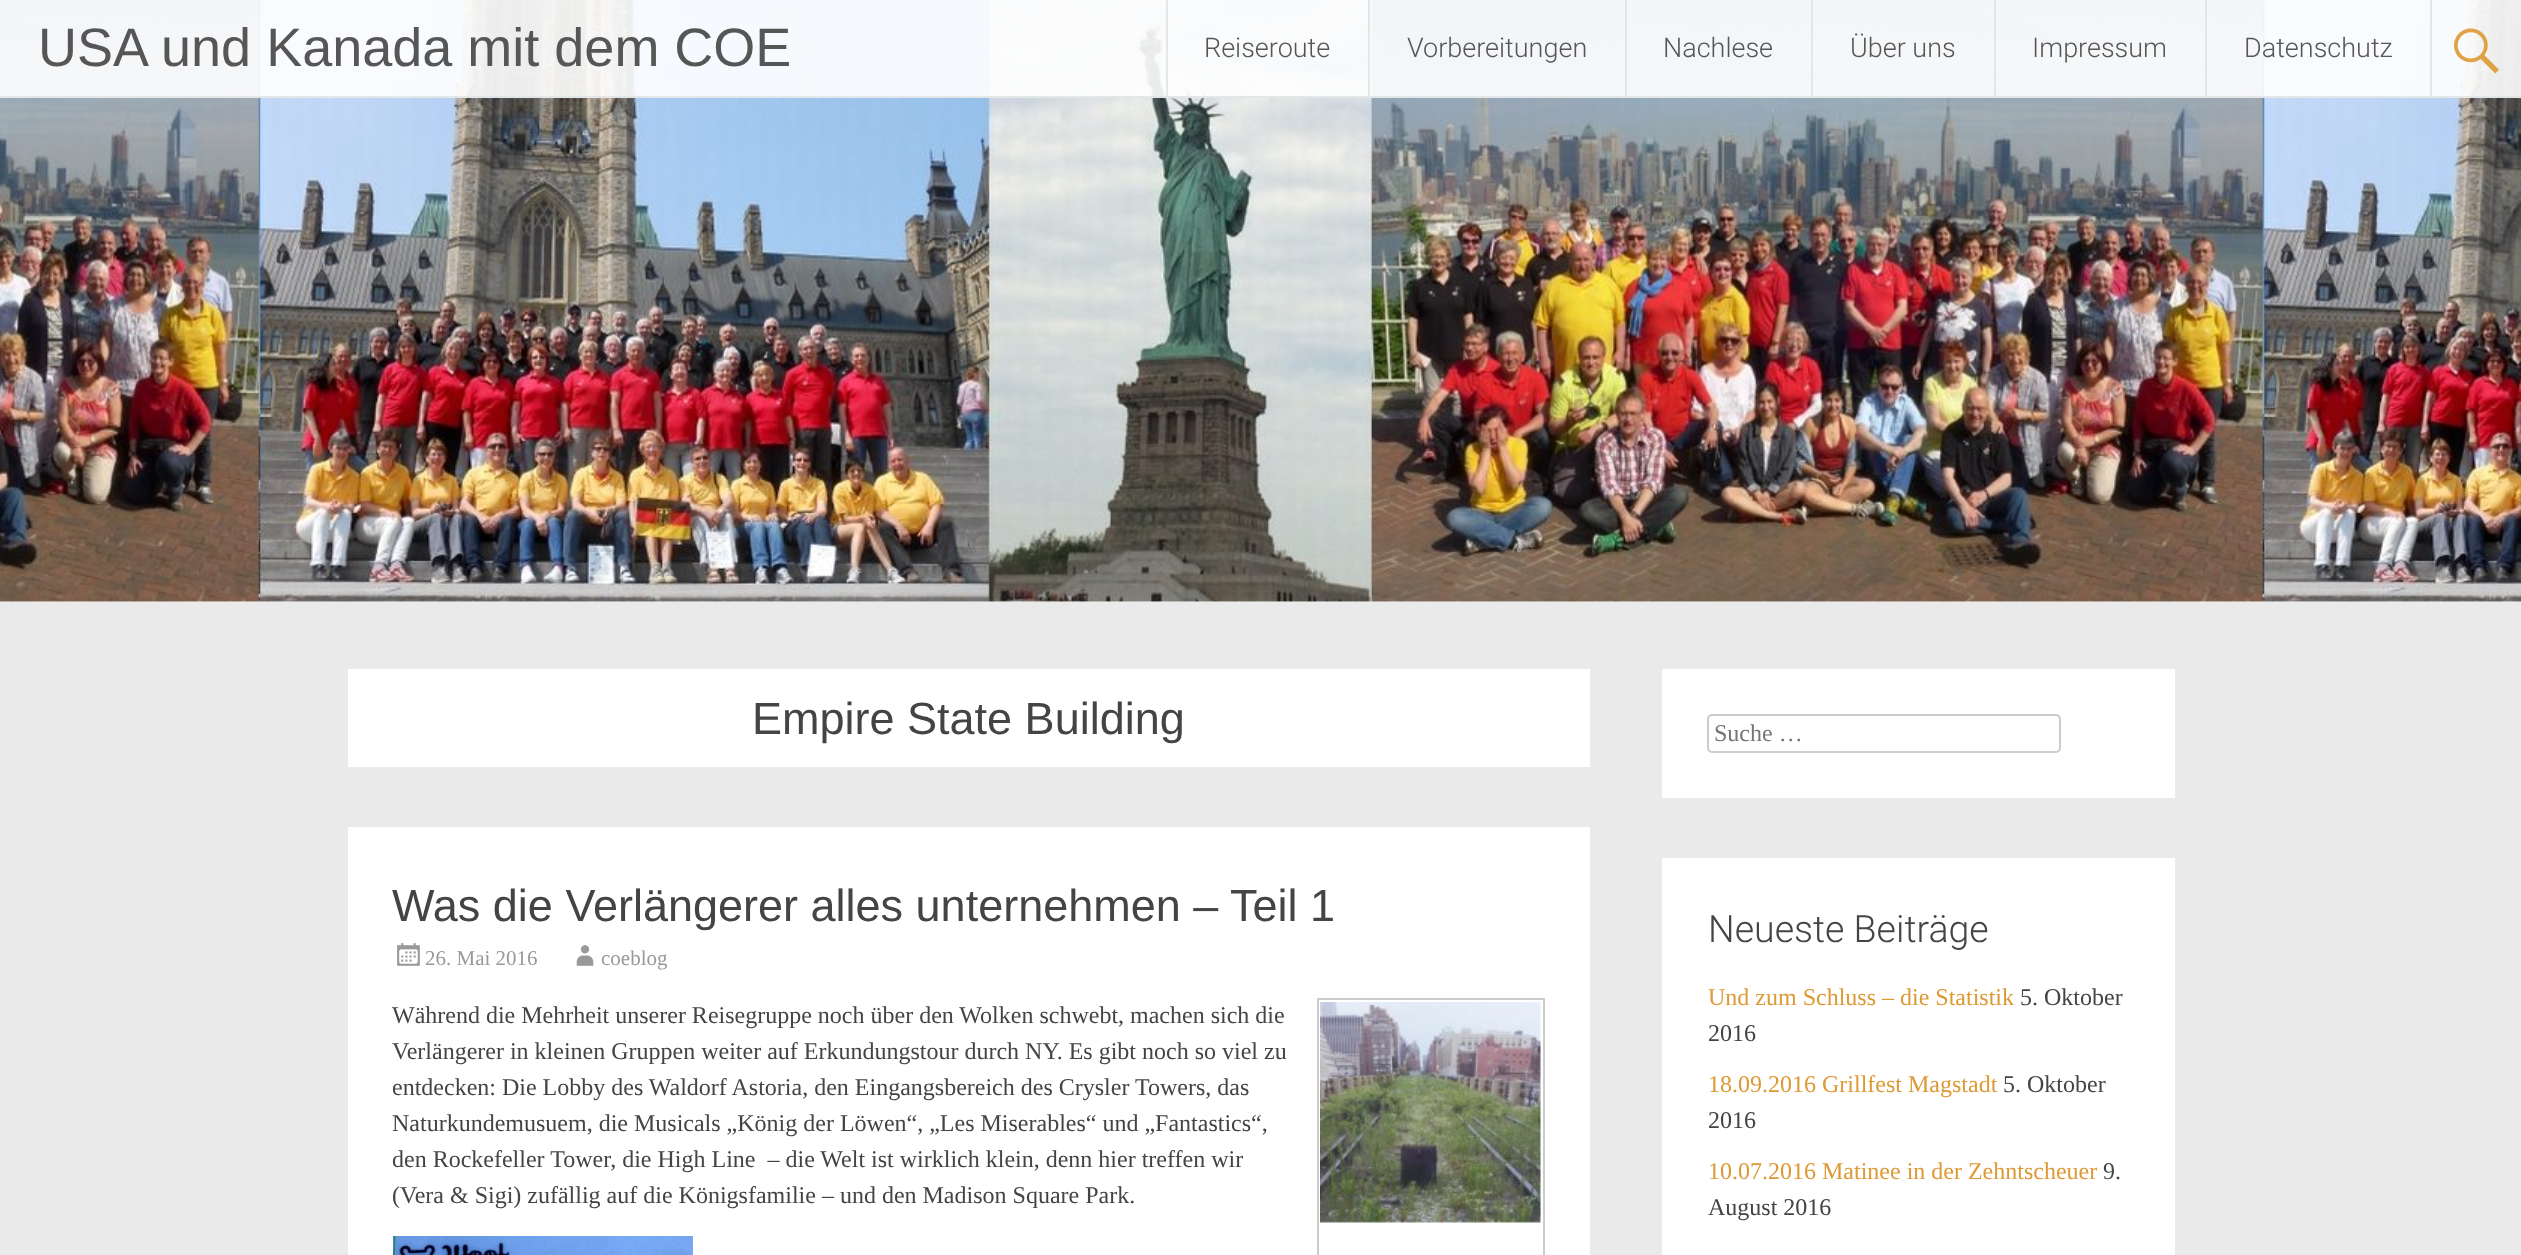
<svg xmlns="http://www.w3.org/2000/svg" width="2521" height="1255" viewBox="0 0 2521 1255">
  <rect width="100%" height="100%" fill="rgb(255,255,255)"/>
  <image x="0" y="0" width="2521" height="602" href="pic1.png"/>
  <rect x="0" y="0" width="2521" height="98" fill="rgba(255,255,255,0.9)"/>
  <rect x="0" y="96" width="2521" height="2" fill="rgba(225,228,230,0.9)"/>
  <text x="38" y="66" font-family="Liberation Sans" font-size="54" fill="rgb(86,86,86)">USA und Kanada mit dem COE</text>
  <rect x="1166" y="0" width="2" height="96" fill="rgba(225,228,230,0.9)"/>
  <text x="1204" y="57" font-family="Roboto" font-size="27" font-weight="300" fill="rgb(86,86,86)">Reiseroute</text>
  <rect x="1368" y="0" width="2" height="96" fill="rgba(225,228,230,0.9)"/>
  <text x="1407" y="57" font-family="Roboto" font-size="27" font-weight="300" fill="rgb(86,86,86)">Vorbereitungen</text>
  <rect x="1625" y="0" width="2" height="96" fill="rgb(227,230,232)"/>
  <text x="1663" y="57" font-family="Roboto" font-size="27" font-weight="300" fill="rgb(86,86,86)">Nachlese</text>
  <rect x="1811" y="0" width="2" height="96" fill="rgba(225,228,230,0.9)"/>
  <text x="1850" y="57" font-family="Roboto" font-size="27" font-weight="300" fill="rgb(86,86,86)">Über uns</text>
  <rect x="1994" y="0" width="2" height="96" fill="rgba(225,228,230,0.9)"/>
  <text x="2032" y="57" font-family="Roboto" font-size="27" font-weight="300" fill="rgb(86,86,86)">Impressum</text>
  <rect x="2205" y="0" width="2" height="96" fill="rgba(225,228,230,0.9)"/>
  <text x="2244" y="57" font-family="Roboto" font-size="27" font-weight="300" fill="rgb(86,86,86)">Datenschutz</text>
  <rect x="2430" y="0" width="2" height="96" fill="rgb(227,230,232)"/>
  <image x="2454" y="28" width="45" height="46" href="pic2.png"/>
  <rect x="0" y="602" width="2521" height="653" fill="rgb(234,234,234)"/>
  <rect x="348" y="669" width="1242" height="98" fill="rgb(255,255,255)"/>
  <text x="752" y="734" font-family="Liberation Sans" font-size="45" fill="rgb(68,68,68)">Empire State Building</text>
  <rect x="348" y="827" width="1242" height="428" fill="rgb(255,255,255)"/>
  <text x="392" y="921" font-family="Liberation Sans" font-size="45" fill="rgb(68,68,68)">Was die Verlängerer alles unternehmen – Teil 1</text>
  <image x="397" y="943" width="23" height="23" href="pic3.png"/>
  <text x="425" y="965" font-family="Liberation Serif" font-size="21" fill="rgb(153,153,153)">26. Mai 2016</text>
  <image x="576" y="945" width="18" height="21" href="pic4.png"/>
  <text x="601" y="965" font-family="Liberation Serif" font-size="21" fill="rgb(153,153,153)">coeblog</text>
  <g font-family="Liberation Serif" font-size="24" fill="rgb(68,68,68)">
    <text xml:space="preserve"><tspan x="392" y="1023">Während die Mehrheit unserer Reisegruppe noch über den Wolken schwebt, machen sich die</tspan><tspan x="392" y="1059">Verlängerer in kleinen Gruppen weiter auf Erkundungstour durch NY. Es gibt noch so viel zu</tspan><tspan x="392" y="1095">entdecken: Die Lobby des Waldorf Astoria, den Eingangsbereich des Crysler Towers, das</tspan><tspan x="392" y="1131">Naturkundemusuem, die Musicals „König der Löwen“, „Les Miserables“ und „Fantastics“,</tspan><tspan x="392" y="1167">den Rockefeller Tower, die High Line  – die Welt ist wirklich klein, denn hier treffen wir</tspan><tspan x="392" y="1203">(Vera &amp; Sigi) zufällig auf die Königsfamilie – und den Madison Square Park.</tspan></text>
  </g>
  <rect x="1318" y="999" width="226" height="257" fill="none" stroke="rgb(204,204,204)" stroke-width="2"/>
  <image x="1320" y="1002" width="221" height="221" href="pic5.png"/>
  <image x="393" y="1236" width="300" height="19" href="pic6.png"/>
  <rect x="1662" y="669" width="513" height="129" fill="rgb(255,255,255)"/>
  <rect x="1708" y="715" width="352" height="37" rx="4" fill="none" stroke="rgb(204,204,204)" stroke-width="2"/>
  <text x="1714" y="741" font-family="Liberation Serif" font-size="24" fill="rgb(117,117,117)">Suche …</text>
  <rect x="1662" y="858" width="513" height="397" fill="rgb(255,255,255)"/>
  <text x="1708" y="942" font-family="Roboto" font-size="37.5" font-weight="300" fill="rgb(68,68,68)">Neueste Beiträge</text>
  <text x="1708" y="1005" font-family="Liberation Serif" font-size="24" fill="rgb(221,153,51)">Und zum Schluss – die Statistik</text>
  <g font-family="Liberation Serif" font-size="24" fill="rgb(68,68,68)">
    <text x="2020" y="1005">5. Oktober</text>
    <text x="1708" y="1041">2016</text>
  </g>
  <text x="1708" y="1092" font-family="Liberation Serif" font-size="24" fill="rgb(221,153,51)">18.09.2016 Grillfest Magstadt</text>
  <g font-family="Liberation Serif" font-size="24" fill="rgb(68,68,68)">
    <text x="2003" y="1092">5. Oktober</text>
    <text x="1708" y="1128">2016</text>
  </g>
  <text x="1708" y="1179" font-family="Liberation Serif" font-size="24" fill="rgb(221,153,51)">10.07.2016 Matinee in der Zehntscheuer</text>
  <g font-family="Liberation Serif" font-size="24" fill="rgb(68,68,68)">
    <text x="2103" y="1179">9.</text>
    <text x="1708" y="1215">August 2016</text>
  </g>
</svg>
